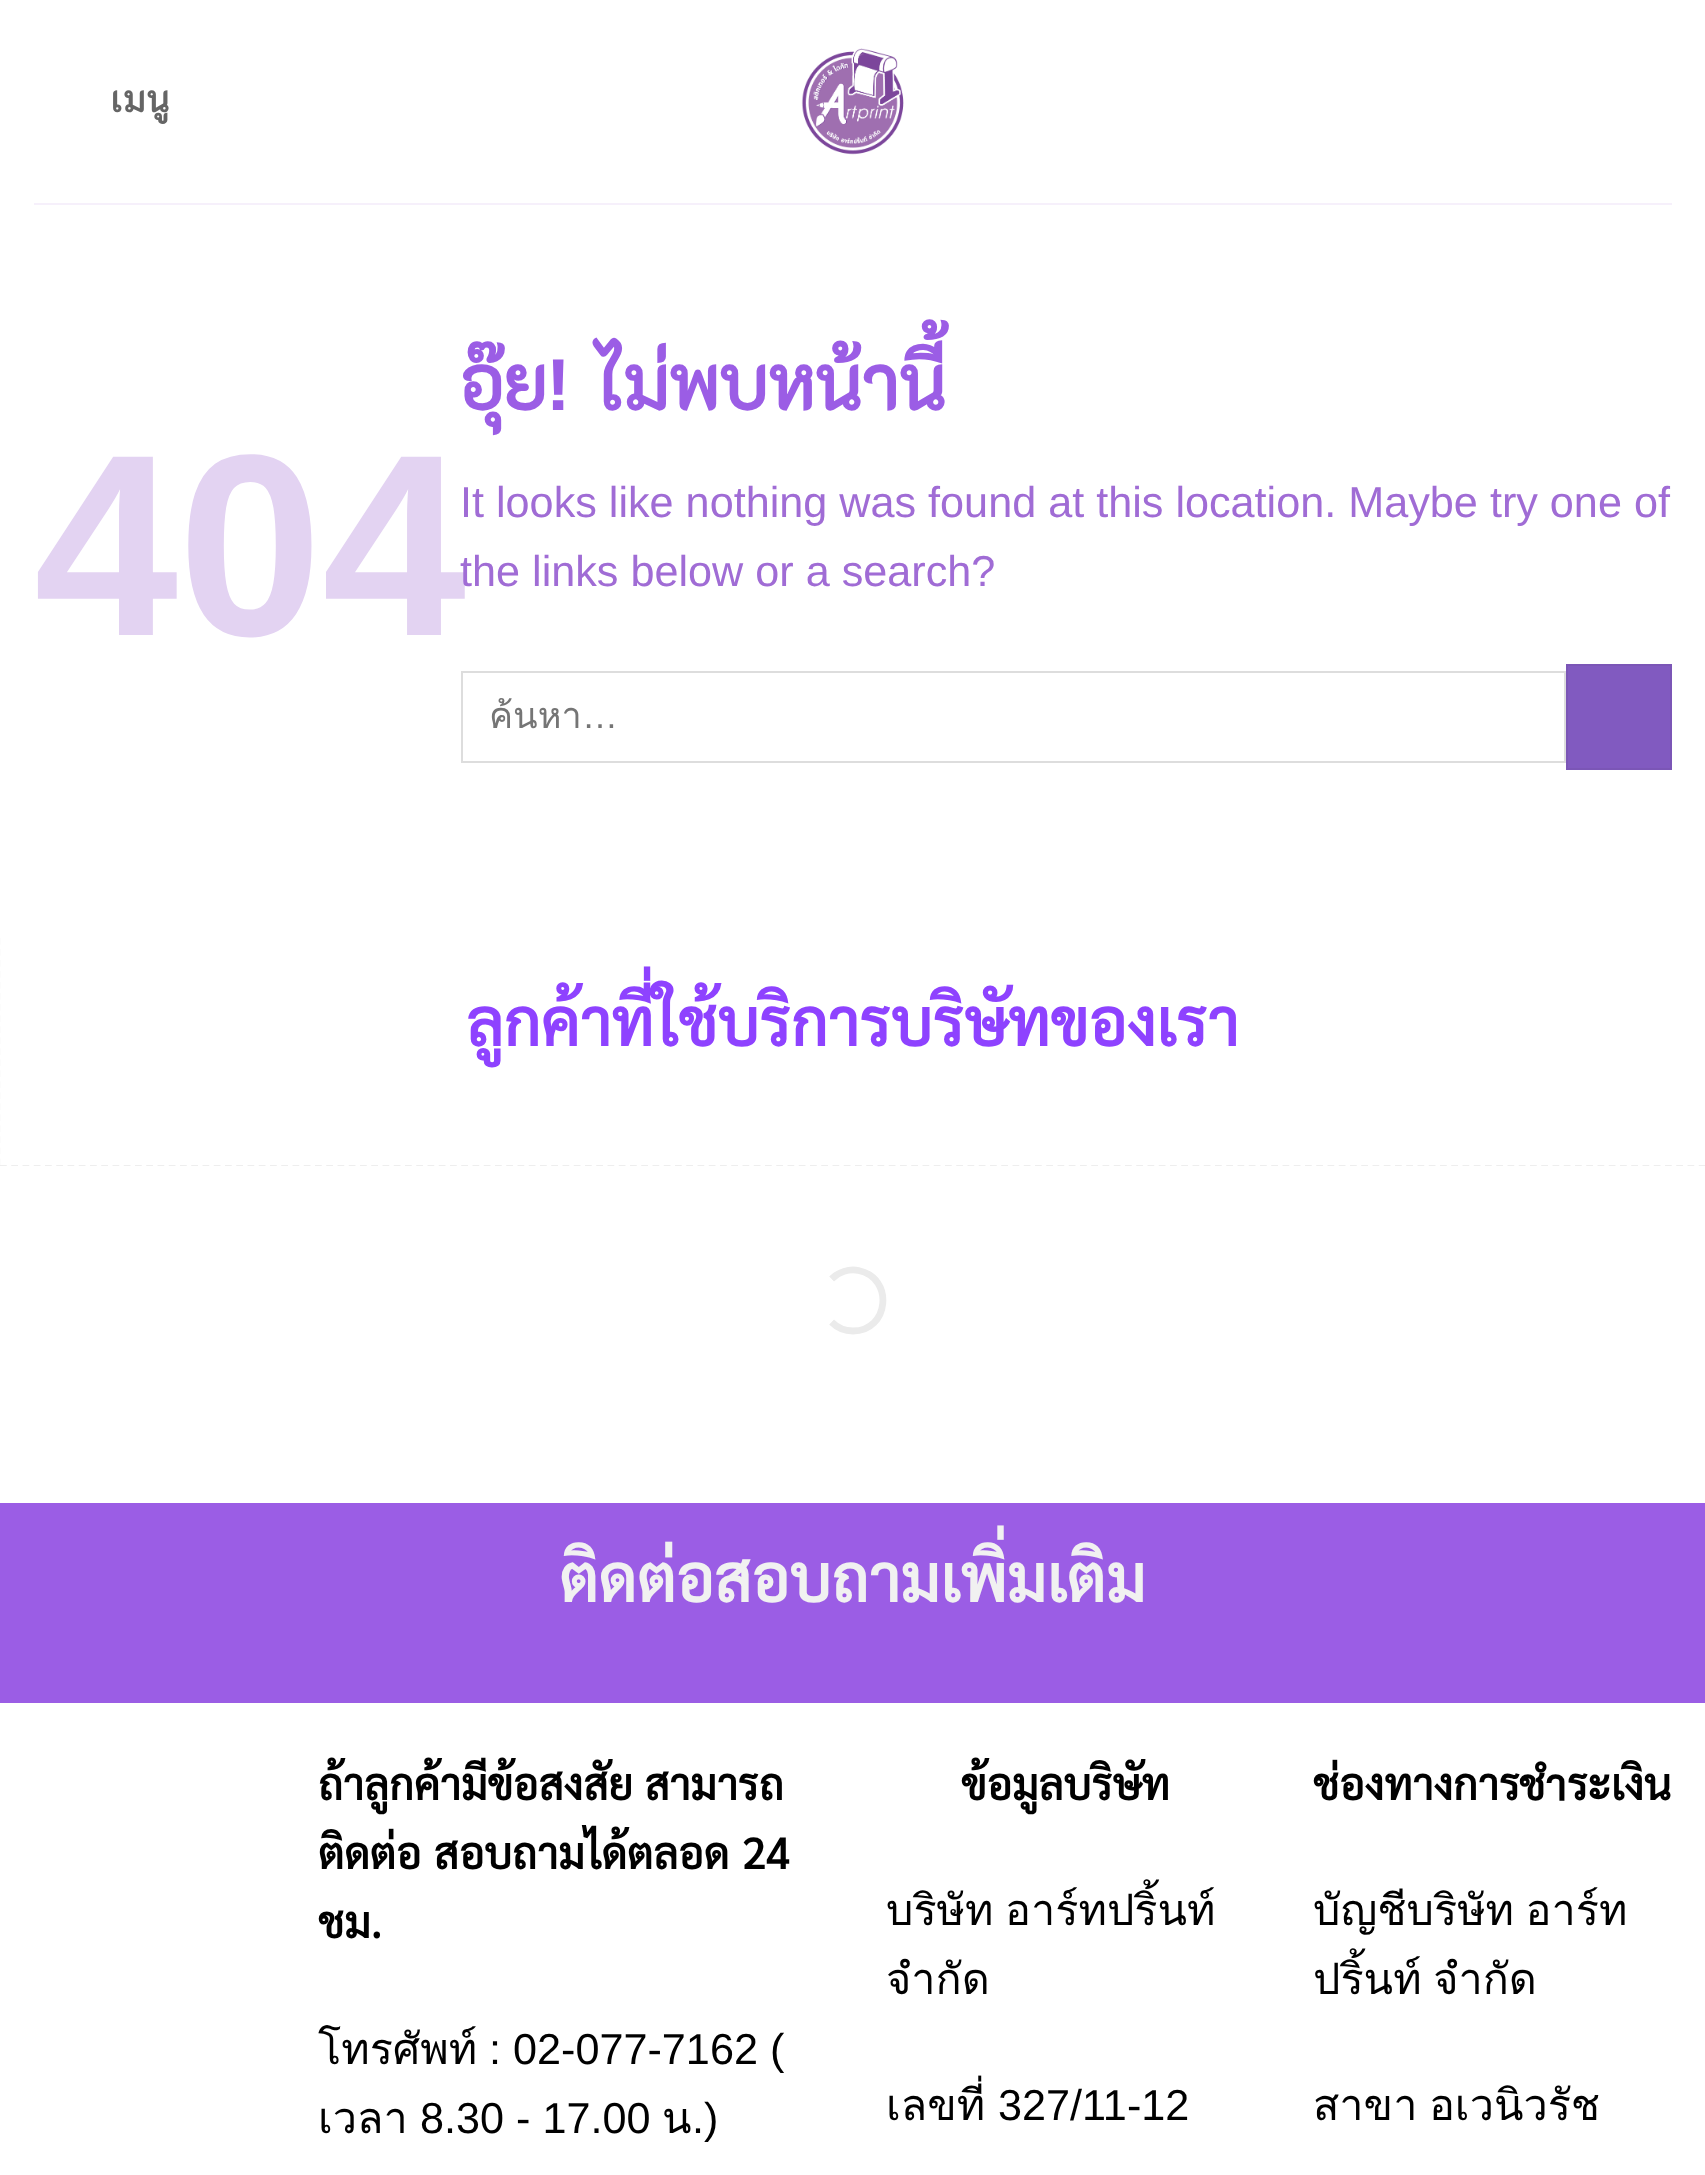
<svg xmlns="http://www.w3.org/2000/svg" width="1705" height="2175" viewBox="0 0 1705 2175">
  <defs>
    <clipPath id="clip1"><rect x="491" y="686" width="1037" height="57"/></clipPath>
    <clipPath id="clip2"><rect x="0" y="938" width="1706" height="228"/></clipPath>
  </defs>
  <rect width="100%" height="100%" fill="rgb(255,255,255)"/>
  <text x="111" y="112" font-family="'K2D'" font-size="35" font-weight="bold" letter-spacing="1.5" fill="rgb(101,101,101)">เมนู</text>
  <image x="801" y="48" width="103" height="107" href="pic1.png"/>
  <rect x="34" y="203" width="1638" height="2" fill="rgb(246,240,251)"/>
  <text x="34" y="635" font-family="Liberation Sans" font-size="259" font-weight="bold" fill="rgb(227,211,242)">404</text>
  <text x="460" y="410" font-family="'K2D'" font-size="73.5" font-weight="bold" fill="rgb(155,93,229)">อุ๊ย</text>
  <text x="546" y="410" font-family="Liberation Sans" font-size="73.5" font-weight="bold" fill="rgb(155,93,229)">!</text>
  <text x="591" y="410" font-family="'K2D'" font-size="73.5" font-weight="bold" fill="rgb(155,93,229)">ไม่พบหน้านี้</text>
  <g font-family="Liberation Sans" font-size="43.2" fill="rgb(160,108,213)">
    <text>
      <tspan x="460" y="517">It looks like nothing was found at this location. Maybe try one of</tspan>
      <tspan x="460" y="586">the links below or a search?</tspan>
    </text>
  </g>
  <rect x="462" y="672" width="1103" height="90" fill="none" stroke="rgb(221,221,221)" stroke-width="2"/>
  <g clip-path="url(#clip1)">
    <text x="489" y="728" font-family="Loma" font-size="36" fill="rgb(117,117,117)">ค้นหา</text>
  </g>
  <text x="582" y="728" font-family="Liberation Sans" font-size="36" fill="rgb(117,117,117)">…</text>
  <rect x="1567" y="665" width="104" height="104" fill="rgb(129,90,192)" stroke="rgb(123,86,182)" stroke-width="2"/>
  <path d="M-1 938V1165.5" fill="none" stroke="rgb(221,221,221)" stroke-width="2.2" stroke-dasharray="6.75 4.27"/>
  <text x="466" y="1046" font-family="Sarabun" font-size="64.75" font-weight="bold" fill="rgb(142,66,255)">ลูกค้าที่ใช้บริการบริษัทของเรา</text>
  <g clip-path="url(#clip2)">
    <path d="M0 1166.5H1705.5" fill="none" stroke="rgb(221,221,221)" stroke-width="2.2" stroke-dasharray="6.75 4.5"/>
  </g>
  <path d="M831.5 1279C838.5 1272 849 1268.5 858.5 1270.5C894.5 1278 889 1331 853 1331C844.5 1331 837 1327.5 831.5 1322" fill="none" stroke="rgb(235,235,235)" stroke-width="6.8"/>
  <path d="M831.5 1322C819.5 1310.5 819.5 1290.5 831.5 1279" fill="none" stroke="rgb(255,255,255)" stroke-width="6.8"/>
  <rect x="0" y="1503" width="1705" height="200" fill="rgb(155,93,229)"/>
  <text x="559" y="1602" font-family="Sarabun" font-size="64.75" font-weight="bold" fill="rgb(241,241,241)">ติดต่อสอบถามเพิ่มเติม</text>
  <g font-family="Sarabun" font-size="43.2" font-weight="bold" fill="rgb(0,0,0)">
    <text>
      <tspan x="318" y="1800" word-spacing="1">ถ้าลูกค้ามีข้อสงสัย สามารถ</tspan>
      <tspan x="318" y="1869" word-spacing="2">ติดต่อ สอบถามได้ตลอด 24</tspan>
      <tspan x="318" y="1938">ชม.</tspan>
    </text>
  </g>
  <text x="318" y="2064" font-family="Loma" font-size="43.2" fill="rgb(0,0,0)">โทรศัพท์</text>
  <text x="489" y="2064" font-family="Liberation Sans" font-size="43.2" fill="rgb(0,0,0)">: 02-077-7162 (</text>
  <text x="318" y="2133" font-family="Loma" font-size="43.2" fill="rgb(0,0,0)">เวลา</text>
  <text x="420" y="2133" font-family="Liberation Sans" font-size="43.2" fill="rgb(0,0,0)">8.30 - 17.00</text>
  <text x="662" y="2133" font-family="Loma" font-size="43.2" fill="rgb(0,0,0)">น</text>
  <text x="692" y="2133" font-family="Liberation Sans" font-size="43.2" fill="rgb(0,0,0)">.)</text>
  <text x="961" y="1800" font-family="Sarabun" font-size="43.2" font-weight="bold" fill="rgb(0,0,0)">ข้อมูลบริษัท</text>
  <g font-family="Loma" font-size="43.2" fill="rgb(0,0,0)">
    <text>
      <tspan x="886" y="1925" word-spacing="-3">บริษัท อาร์ทปริ้นท์</tspan>
      <tspan x="886" y="1994">จำกัด</tspan>
    </text>
    <text x="886" y="2120">เลขที่</text>
  </g>
  <text x="998" y="2120" font-family="Liberation Sans" font-size="43.2" fill="rgb(0,0,0)">327/11-12</text>
  <text x="1313" y="1800" font-family="Sarabun" font-size="43.2" font-weight="bold" fill="rgb(0,0,0)">ช่องทางการชำระเงิน</text>
  <g font-family="Loma" font-size="43.2" fill="rgb(0,0,0)">
    <text>
      <tspan x="1313" y="1925" word-spacing="-3">บัญชีบริษัท อาร์ท</tspan>
      <tspan x="1313" y="1994" word-spacing="-3">ปริ้นท์ จำกัด</tspan>
    </text>
    <text x="1313" y="2120" word-spacing="-3">สาขา อเวนิวรัช</text>
  </g>
</svg>
